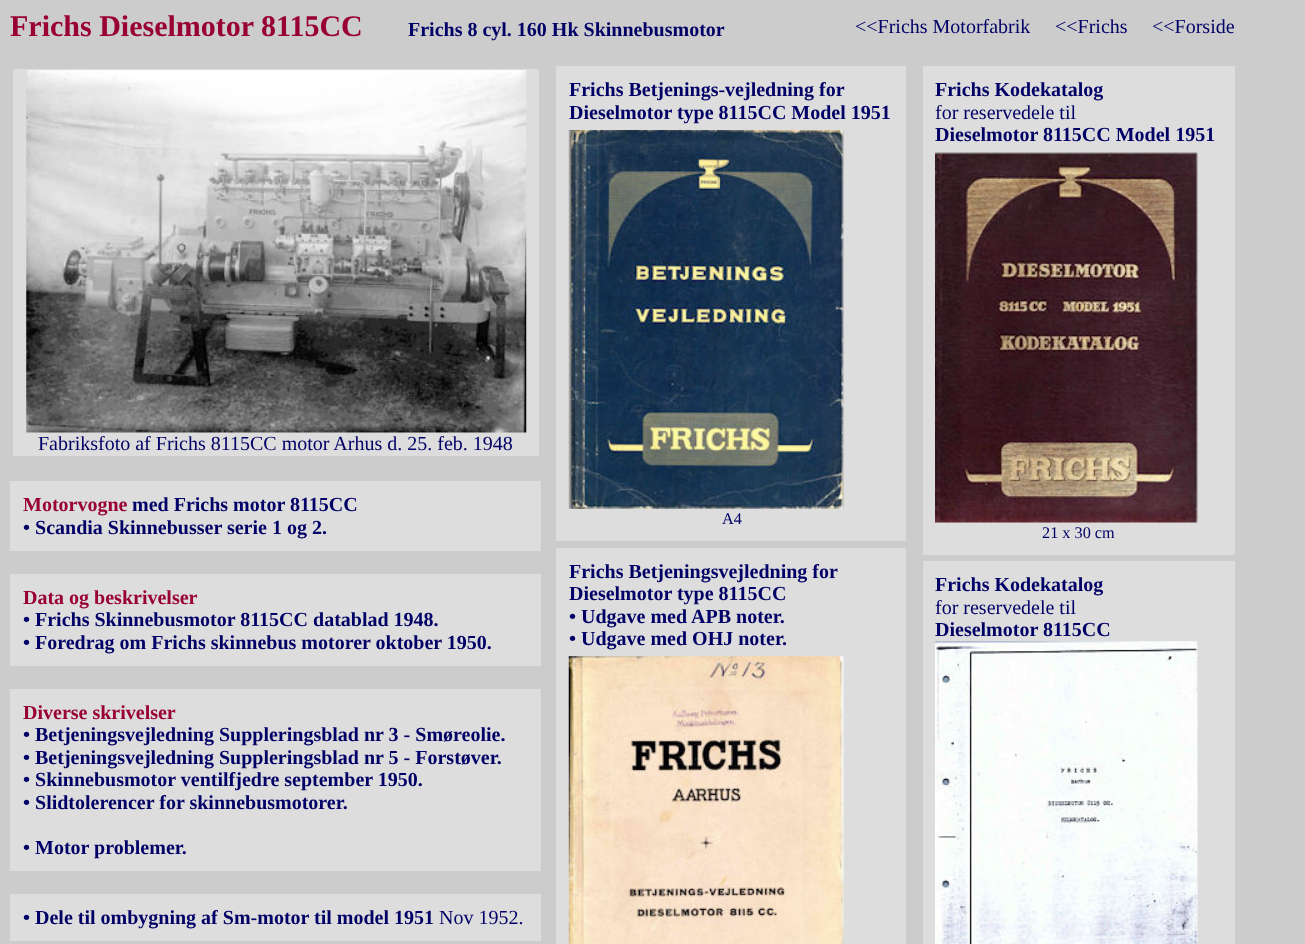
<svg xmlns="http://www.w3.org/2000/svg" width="1305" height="944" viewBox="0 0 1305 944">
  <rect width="100%" height="100%" fill="rgb(204,204,204)"/>
  <text x="10" y="36" font-family="Liberation Serif" font-size="30" font-weight="bold" fill="rgb(153,0,51)">Frichs Dieselmotor 8115CC</text>
  <text x="408" y="36" font-family="Liberation Serif" font-size="20" font-weight="bold" fill="rgb(0,0,102)">Frichs 8 cyl. 160 Hk Skinnebusmotor</text>
  <g font-family="Liberation Serif" font-size="20" fill="rgb(0,0,102)">
    <text x="855" y="33">&lt;&lt;Frichs Motorfabrik</text>
    <text x="1055" y="33">&lt;&lt;Frichs</text>
    <text x="1152" y="33">&lt;&lt;Forside</text>
  </g>
  <rect x="13" y="69" width="526" height="387" fill="rgb(221,221,221)"/>
  <image x="26" y="70" width="501" height="363" href="pic1.png"/>
  <text x="38" y="450" font-family="Liberation Serif" font-size="20" fill="rgb(0,0,102)">Fabriksfoto af Frichs 8115CC motor Arhus d. 25. feb. 1948</text>
  <rect x="10" y="481" width="531" height="70" fill="rgb(221,221,221)"/>
  <text x="23" y="511" font-family="Liberation Serif" font-size="20" font-weight="bold" fill="rgb(153,0,51)">Motorvogne</text>
  <g font-family="Liberation Serif" font-size="20" font-weight="bold" fill="rgb(0,0,102)">
    <text x="132" y="511">med Frichs motor 8115CC</text>
    <text x="23" y="534">• Scandia Skinnebusser serie 1 og 2.</text>
  </g>
  <rect x="10" y="574" width="531" height="92" fill="rgb(221,221,221)"/>
  <text x="23" y="604" font-family="Liberation Serif" font-size="20" font-weight="bold" fill="rgb(153,0,51)">Data og beskrivelser</text>
  <g font-family="Liberation Serif" font-size="20" font-weight="bold" fill="rgb(0,0,102)">
    <text>
      <tspan x="23" y="626">• Frichs Skinnebusmotor 8115CC datablad 1948.</tspan>
      <tspan x="23" y="649">• Foredrag om Frichs skinnebus motorer oktober 1950.</tspan>
    </text>
  </g>
  <rect x="10" y="689" width="531" height="182" fill="rgb(221,221,221)"/>
  <text x="23" y="719" font-family="Liberation Serif" font-size="20" font-weight="bold" fill="rgb(153,0,51)">Diverse skrivelser</text>
  <g font-family="Liberation Serif" font-size="20" font-weight="bold" fill="rgb(0,0,102)">
    <text>
      <tspan x="23" y="741">• Betjeningsvejledning Suppleringsblad nr 3 - Smøreolie.</tspan>
      <tspan x="23" y="764">• Betjeningsvejledning Suppleringsblad nr 5 - Forstøver.</tspan>
      <tspan x="23" y="786">• Skinnebusmotor ventilfjedre september 1950.</tspan>
      <tspan x="23" y="809">• Slidtolerencer for skinnebusmotorer.</tspan>
    </text>
    <text x="23" y="854">• Motor problemer.</text>
  </g>
  <rect x="10" y="894" width="531" height="47" fill="rgb(221,221,221)"/>
  <text x="23" y="924" font-family="Liberation Serif" font-size="20" font-weight="bold" fill="rgb(0,0,102)">• Dele til ombygning af Sm-motor til model 1951</text>
  <text x="439" y="924" font-family="Liberation Serif" font-size="20" fill="rgb(0,0,102)">Nov 1952.</text>
  <rect x="556" y="66" width="350" height="475" fill="rgb(221,221,221)"/>
  <g font-family="Liberation Serif" font-size="20" font-weight="bold" fill="rgb(0,0,102)">
    <text>
      <tspan x="569" y="96">Frichs Betjenings-vejledning for</tspan>
      <tspan x="569" y="119">Dieselmotor type 8115CC Model 1951</tspan>
    </text>
  </g>
  <image x="568" y="130" width="276" height="379" href="pic2.png"/>
  <text x="722" y="524" font-family="Liberation Serif" font-size="16.25" fill="rgb(0,0,102)">A4</text>
  <rect x="556" y="548" width="350" height="396" fill="rgb(221,221,221)"/>
  <g font-family="Liberation Serif" font-size="20" font-weight="bold" fill="rgb(0,0,102)">
    <text>
      <tspan x="569" y="578">Frichs Betjeningsvejledning for</tspan>
      <tspan x="569" y="600">Dieselmotor type 8115CC</tspan>
      <tspan x="569" y="623">• Udgave med APB noter.</tspan>
      <tspan x="569" y="645">• Udgave med OHJ noter.</tspan>
    </text>
  </g>
  <image x="568" y="656" width="276" height="288" href="pic3.png"/>
  <rect x="923" y="66" width="312" height="489" fill="rgb(221,221,221)"/>
  <text x="935" y="96" font-family="Liberation Serif" font-size="20" font-weight="bold" fill="rgb(0,0,102)">Frichs Kodekatalog</text>
  <text x="935" y="119" font-family="Liberation Serif" font-size="20" fill="rgb(0,0,102)">for reservedele til</text>
  <text x="935" y="141" font-family="Liberation Serif" font-size="20" font-weight="bold" fill="rgb(0,0,102)">Dieselmotor 8115CC Model 1951</text>
  <image x="935" y="152" width="263" height="371" href="pic4.png"/>
  <text x="1042" y="538" font-family="Liberation Serif" font-size="16.25" fill="rgb(0,0,102)">21 x 30 cm</text>
  <rect x="923" y="561" width="312" height="383" fill="rgb(221,221,221)"/>
  <text x="935" y="591" font-family="Liberation Serif" font-size="20" font-weight="bold" fill="rgb(0,0,102)">Frichs Kodekatalog</text>
  <text x="935" y="614" font-family="Liberation Serif" font-size="20" fill="rgb(0,0,102)">for reservedele til</text>
  <text x="935" y="636" font-family="Liberation Serif" font-size="20" font-weight="bold" fill="rgb(0,0,102)">Dieselmotor 8115CC</text>
  <image x="935" y="641" width="263" height="303" href="pic5.png"/>
</svg>
